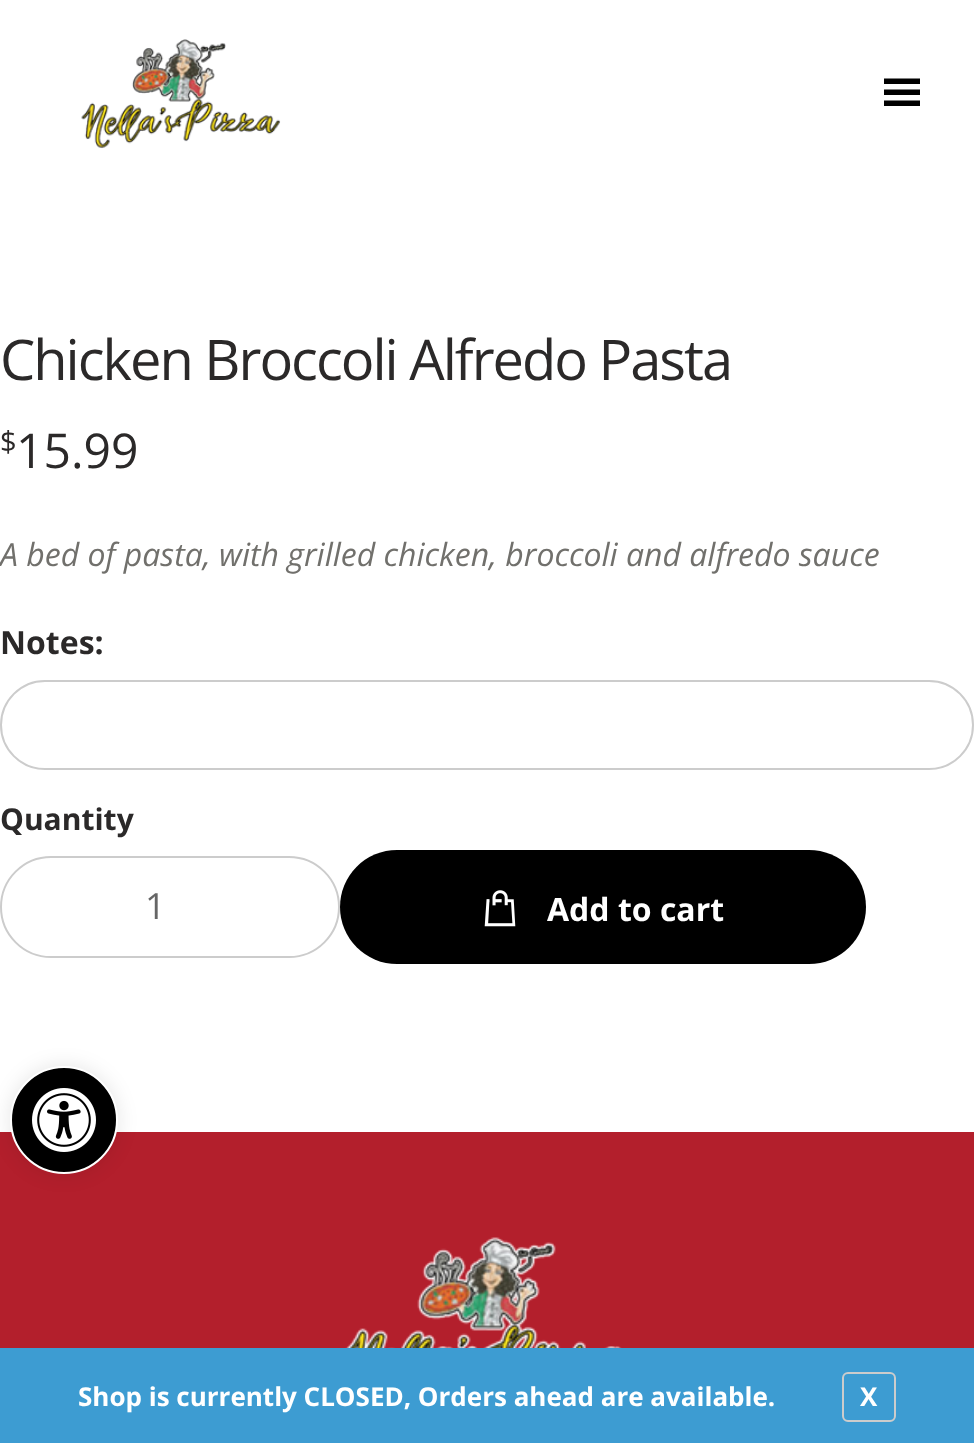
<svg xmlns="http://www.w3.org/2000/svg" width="974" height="1443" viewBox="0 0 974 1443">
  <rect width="100%" height="100%" fill="rgb(255,255,255)"/>
  <image x="81" y="39" width="200" height="110" href="pic1.png"/>
  <path d="M884 78.5V84H920V78.5ZM884 95H920V89.5H884ZM884 106H920V100.5H884Z" fill="rgb(0,0,0)"/>
  <text x="0" y="380" font-family="Open Sans" font-size="56" letter-spacing="-2" fill="rgb(43,41,41)">Chicken Broccoli Alfredo Pasta</text>
  <text x="0" y="452" font-family="Open Sans" font-size="29" fill="rgb(43,41,41)">$</text>
  <text x="16" y="468" font-family="Open Sans" font-size="48" fill="rgb(43,41,41)">15.99</text>
  <text x="0" y="566" font-family="Open Sans" font-size="32" font-style="italic" fill="rgb(113,112,108)">A bed of pasta, with grilled chicken, broccoli and alfredo sauce</text>
  <text x="0" y="654" font-family="Open Sans" font-size="32" font-weight="bold" fill="rgb(43,41,41)">Notes:</text>
  <rect x="1" y="681" width="972" height="88" rx="44" fill="none" stroke="rgb(204,204,204)" stroke-width="2"/>
  <text x="0" y="830" font-family="Open Sans" font-size="30" font-weight="bold" fill="rgb(43,41,41)">Quantity</text>
  <rect x="1" y="857" width="338" height="100" rx="50" fill="none" stroke="rgb(204,204,204)" stroke-width="2"/>
  <text x="145" y="919" font-family="Open Sans" font-size="36" fill="rgb(102,102,102)">1</text>
  <rect x="340" y="850" width="526" height="114" rx="57" fill="rgb(0,0,0)"/>
  <image x="484" y="890" width="32" height="37" href="pic2.png"/>
  <text x="547" y="921" font-family="Open Sans" font-size="32" font-weight="bold" fill="rgb(255,255,255)">Add to cart</text>
  <rect x="0" y="1132" width="974" height="216" fill="rgb(179,31,44)"/>
  <image x="345" y="1237" width="277" height="111" href="pic3.png"/>
  <rect x="10" y="1066" width="108" height="108" rx="54" fill="rgba(0,0,0,0.1)" filter="blur(10px)"/>
  <circle cx="64" cy="1120" r="53" fill="rgb(0,0,0)" stroke="rgb(255,255,255)" stroke-width="2"/>
  <image x="32" y="1088" width="64" height="64" href="pic4.png"/>
  <rect x="0" y="1348" width="974" height="95" fill="rgb(61,156,210)"/>
  <text x="78" y="1406" font-family="Open Sans" font-size="26" font-weight="bold" fill="rgb(255,255,255)">Shop is currently CLOSED, Orders ahead are available.</text>
  <rect x="843" y="1373" width="52" height="48" rx="5" fill="none" stroke="rgb(204,204,204)" stroke-width="2"/>
  <text x="860" y="1406" font-family="Open Sans" font-size="26" font-weight="bold" fill="rgb(255,255,255)">X</text>
</svg>
